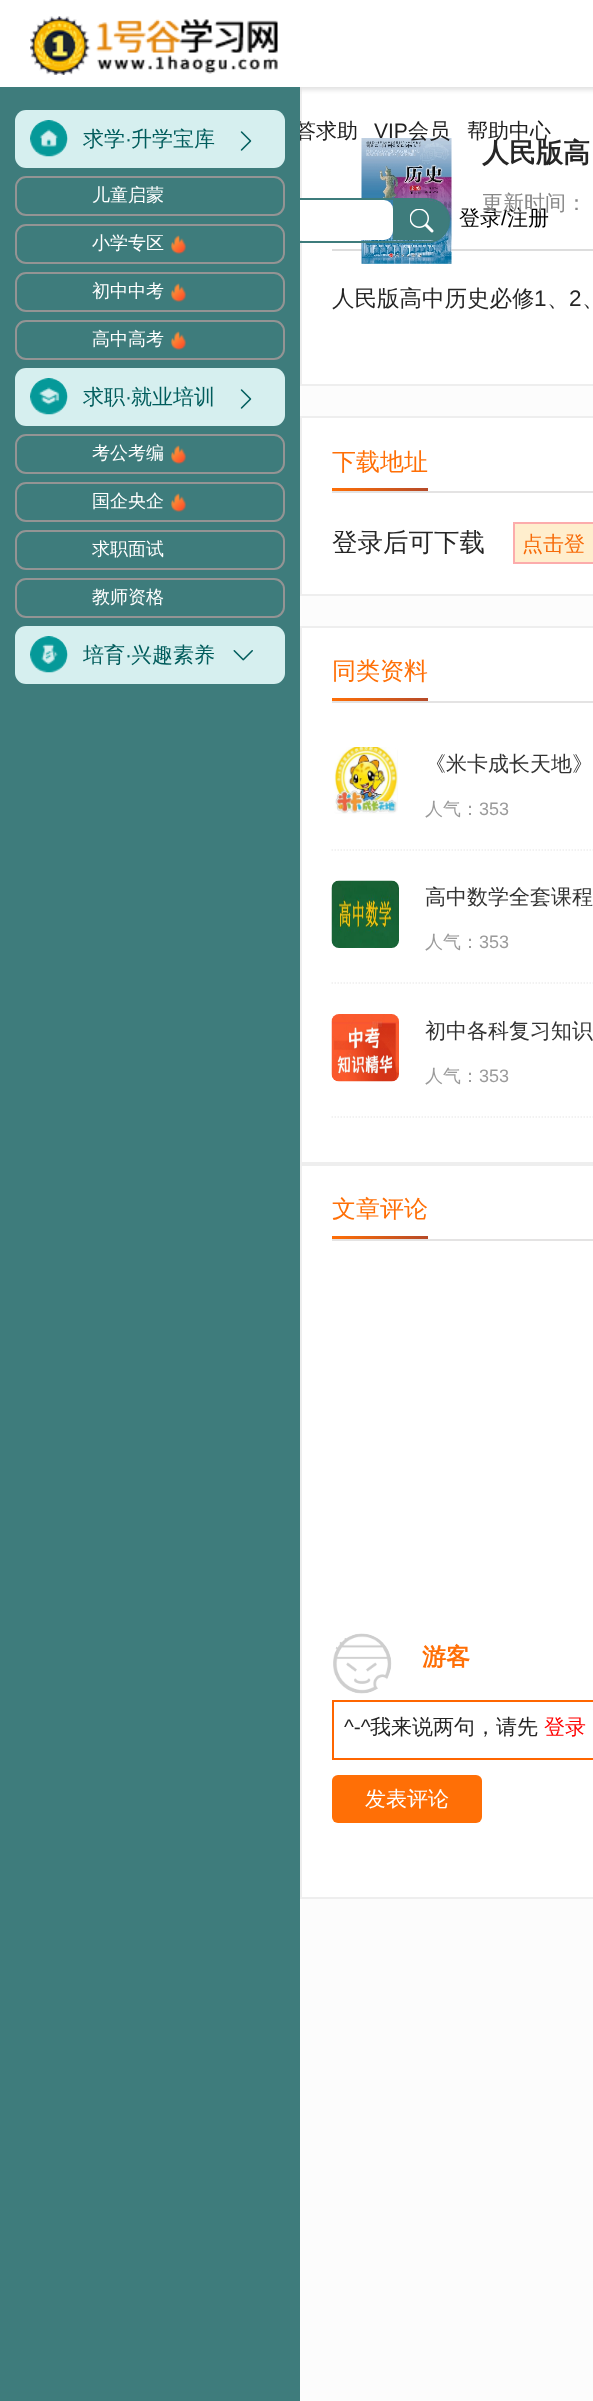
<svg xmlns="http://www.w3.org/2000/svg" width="593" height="2401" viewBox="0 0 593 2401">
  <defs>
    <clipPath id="clip1"><rect x="56" y="200" width="393" height="42" rx="21"/></clipPath>
    <linearGradient id="g1" gradientUnits="userSpaceOnUse" x1="332" y1="489" x2="428" y2="489"><stop offset="0" stop-color="rgb(255,111,6)"/><stop offset="1" stop-color="rgb(182,74,40)"/></linearGradient>
    <linearGradient id="g2" gradientUnits="userSpaceOnUse" x1="332" y1="699" x2="428" y2="699"><stop offset="0" stop-color="rgb(255,111,6)"/><stop offset="1" stop-color="rgb(182,74,40)"/></linearGradient>
    <linearGradient id="g3" gradientUnits="userSpaceOnUse" x1="332" y1="1238" x2="428" y2="1238"><stop offset="0" stop-color="rgb(255,111,6)"/><stop offset="1" stop-color="rgb(182,74,40)"/></linearGradient>
  </defs>
  <rect width="100%" height="100%" fill="rgb(252,252,252)"/>
  <rect x="302" y="87" width="291" height="297" fill="rgb(255,255,255)"/>
  <rect x="301" y="3" width="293" height="382" fill="none" stroke="rgb(238,238,238)" stroke-width="2"/>
  <rect x="2" y="0" width="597" height="90" fill="rgb(225,225,225)" filter="blur(2px)"/>
  <rect x="0" y="0" width="593" height="87" fill="rgb(255,255,255)"/>
  <image x="30" y="16" width="248" height="59" href="pic1.png"/>
  <text x="295" y="138" font-family="WenQuanYi Zen Hei" font-size="21" font-weight="500" fill="rgb(32,32,32)">答求助</text>
  <text x="374" y="138" font-family="Liberation Sans" font-size="21" fill="rgb(32,32,32)">VIP</text>
  <rect x="332" y="249" width="261" height="2" fill="rgb(221,221,221)"/>
  <image x="361" y="138" width="91" height="126" href="pic10.png"/>
  <g font-family="WenQuanYi Zen Hei" font-size="21" font-weight="500" fill="rgb(32,32,32)">
    <text x="408" y="138">会员</text>
    <text x="467" y="138">帮助中心</text>
  </g>
  <rect x="55" y="199" width="394" height="43" rx="21.5" fill="none" stroke="rgb(62,124,124)" stroke-width="2"/>
  <rect x="90" y="200" width="303" height="40" rx="9" fill="rgb(255,255,255)"/>
  <g clip-path="url(#clip1)">
    <path d="M393 200H428C439.5 200 449 209.5 449 221V240H393Z" fill="rgb(62,124,124)"/>
  </g>
  <image x="410" y="209" width="24" height="24" href="pic2.png"/>
  <text x="459" y="225" font-family="WenQuanYi Zen Hei" font-size="21" font-weight="500" fill="rgb(0,0,0)">登录</text>
  <text x="501" y="225" font-family="Liberation Sans" font-size="21" fill="rgb(0,0,0)">/</text>
  <text x="507" y="225" font-family="WenQuanYi Zen Hei" font-size="21" font-weight="500" fill="rgb(0,0,0)">注册</text>
  <rect x="0" y="87" width="300" height="2314" fill="rgb(62,124,124)"/>
  <rect x="15" y="110" width="270" height="58" rx="11" fill="rgb(214,239,239)"/>
  <image x="30" y="120" width="38" height="37" href="pic3.png"/>
  <text x="83" y="146" font-family="WenQuanYi Zen Hei" font-size="21" font-weight="500" fill="rgb(0,92,92)">求学</text>
  <text x="125" y="146" font-family="Liberation Sans" font-size="21" fill="rgb(0,92,92)">·</text>
  <text x="131" y="146" font-family="WenQuanYi Zen Hei" font-size="21" font-weight="500" fill="rgb(0,92,92)">升学宝库</text>
  <image x="240" y="131" width="12" height="20" href="pic4.png"/>
  <rect x="16" y="177" width="268" height="38" rx="10" fill="none" stroke="rgb(148,148,148)" stroke-width="2"/>
  <text x="92" y="201" font-family="WenQuanYi Zen Hei" font-size="18" font-weight="500" fill="rgb(255,255,255)">儿童启蒙</text>
  <rect x="16" y="225" width="268" height="38" rx="10" fill="none" stroke="rgb(148,148,148)" stroke-width="2"/>
  <text x="92" y="249" font-family="WenQuanYi Zen Hei" font-size="18" font-weight="500" fill="rgb(255,255,255)">小学专区</text>
  <image x="171" y="235" width="15" height="19" href="pic5.png"/>
  <rect x="16" y="273" width="268" height="38" rx="10" fill="none" stroke="rgb(148,148,148)" stroke-width="2"/>
  <text x="92" y="297" font-family="WenQuanYi Zen Hei" font-size="18" font-weight="500" fill="rgb(255,255,255)">初中中考</text>
  <image x="171" y="283" width="15" height="19" href="pic6.png"/>
  <rect x="16" y="321" width="268" height="38" rx="10" fill="none" stroke="rgb(148,148,148)" stroke-width="2"/>
  <text x="92" y="345" font-family="WenQuanYi Zen Hei" font-size="18" font-weight="500" fill="rgb(255,255,255)">高中高考</text>
  <image x="171" y="331" width="15" height="19" href="pic5.png"/>
  <rect x="15" y="368" width="270" height="58" rx="11" fill="rgb(214,239,239)"/>
  <image x="30" y="378" width="38" height="37" href="pic7.png"/>
  <text x="83" y="404" font-family="WenQuanYi Zen Hei" font-size="21" font-weight="500" fill="rgb(0,92,92)">求职</text>
  <text x="125" y="404" font-family="Liberation Sans" font-size="21" fill="rgb(0,92,92)">·</text>
  <text x="131" y="404" font-family="WenQuanYi Zen Hei" font-size="21" font-weight="500" fill="rgb(0,92,92)">就业培训</text>
  <image x="240" y="389" width="12" height="20" href="pic4.png"/>
  <rect x="16" y="435" width="268" height="38" rx="10" fill="none" stroke="rgb(148,148,148)" stroke-width="2"/>
  <text x="92" y="459" font-family="WenQuanYi Zen Hei" font-size="18" font-weight="500" fill="rgb(255,255,255)">考公考编</text>
  <image x="171" y="445" width="15" height="19" href="pic5.png"/>
  <rect x="16" y="483" width="268" height="38" rx="10" fill="none" stroke="rgb(148,148,148)" stroke-width="2"/>
  <text x="92" y="507" font-family="WenQuanYi Zen Hei" font-size="18" font-weight="500" fill="rgb(255,255,255)">国企央企</text>
  <image x="171" y="493" width="15" height="19" href="pic5.png"/>
  <rect x="16" y="531" width="268" height="38" rx="10" fill="none" stroke="rgb(148,148,148)" stroke-width="2"/>
  <text x="92" y="555" font-family="WenQuanYi Zen Hei" font-size="18" font-weight="500" fill="rgb(255,255,255)">求职面试</text>
  <rect x="16" y="579" width="268" height="38" rx="10" fill="none" stroke="rgb(148,148,148)" stroke-width="2"/>
  <text x="92" y="603" font-family="WenQuanYi Zen Hei" font-size="18" font-weight="500" fill="rgb(255,255,255)">教师资格</text>
  <rect x="15" y="626" width="270" height="58" rx="11" fill="rgb(214,239,239)"/>
  <image x="30" y="636" width="38" height="37" href="pic8.png"/>
  <text x="83" y="662" font-family="WenQuanYi Zen Hei" font-size="21" font-weight="500" fill="rgb(0,92,92)">培育</text>
  <text x="125" y="662" font-family="Liberation Sans" font-size="21" fill="rgb(0,92,92)">·</text>
  <text x="131" y="662" font-family="WenQuanYi Zen Hei" font-size="21" font-weight="500" fill="rgb(0,92,92)">兴趣素养</text>
  <image x="233" y="650" width="20" height="11" href="pic9.png"/>
  <text x="482" y="162" font-family="WenQuanYi Zen Hei" font-size="27" font-weight="bold" fill="rgb(38,38,38)">人民版高</text>
  <text x="482" y="210" font-family="WenQuanYi Zen Hei" font-size="21" font-weight="500" fill="rgb(136,136,136)">更新时间：</text>
  <text x="332" y="306" font-family="WenQuanYi Zen Hei" font-size="22.5" font-weight="500" fill="rgb(38,38,38)">人民版高中历史必修</text>
  <g font-family="Liberation Sans" font-size="22.5" fill="rgb(38,38,38)">
    <text x="534" y="306">1</text>
    <text x="569" y="306">2</text>
  </g>
  <g font-family="WenQuanYi Zen Hei" font-size="22.5" font-weight="500" fill="rgb(38,38,38)">
    <text x="547" y="306">、</text>
    <text x="582" y="306">、</text>
  </g>
  <rect x="301" y="417" width="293" height="178" fill="rgb(255,255,255)" stroke="rgb(238,238,238)" stroke-width="2"/>
  <rect x="332" y="491" width="261" height="2" fill="rgb(228,227,227)"/>
  <text x="332" y="470" font-family="WenQuanYi Zen Hei" font-size="24" font-weight="500" fill="rgb(255,111,6)">下载地址</text>
  <rect x="332" y="488" width="96" height="3" fill="url(#g1)"/>
  <text x="332" y="551" font-family="WenQuanYi Zen Hei" font-size="25.5" font-weight="500" fill="rgb(38,38,38)">登录后可下载</text>
  <rect x="514" y="523" width="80" height="40" fill="rgb(255,238,205)" stroke="rgb(252,172,172)" stroke-width="2"/>
  <text x="522" y="551" font-family="WenQuanYi Zen Hei" font-size="21" font-weight="500" fill="rgb(247,107,9)">点击登</text>
  <rect x="301" y="627" width="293" height="536" fill="rgb(255,255,255)" stroke="rgb(238,238,238)" stroke-width="2"/>
  <rect x="332" y="701" width="261" height="2" fill="rgb(228,227,227)"/>
  <text x="332" y="679" font-family="WenQuanYi Zen Hei" font-size="24" font-weight="500" fill="rgb(255,111,6)">同类资料</text>
  <rect x="332" y="698" width="96" height="3" fill="url(#g2)"/>
  <path d="M331.5 850H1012.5" fill="none" stroke="rgb(238,238,238)" stroke-width="1.5" stroke-dasharray="1.5 1.5"/>
  <image x="334" y="747" width="64" height="67" href="pic11.png"/>
  <text x="425" y="771" font-family="WenQuanYi Zen Hei" font-size="21" font-weight="500" fill="rgb(51,51,51)">《米卡成长天地》</text>
  <text x="425" y="815" font-family="WenQuanYi Zen Hei" font-size="18" font-weight="500" fill="rgb(155,155,155)">人气：</text>
  <text x="479" y="815" font-family="Liberation Sans" font-size="18" fill="rgb(155,155,155)">353</text>
  <path d="M331.5 983H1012.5" fill="none" stroke="rgb(238,238,238)" stroke-width="1.5" stroke-dasharray="1.5 1.5"/>
  <image x="331" y="880" width="68" height="68" href="pic12.png"/>
  <text x="425" y="904" font-family="WenQuanYi Zen Hei" font-size="21" font-weight="500" fill="rgb(51,51,51)">高中数学全套课程</text>
  <text x="425" y="948" font-family="WenQuanYi Zen Hei" font-size="18" font-weight="500" fill="rgb(155,155,155)">人气：</text>
  <text x="479" y="948" font-family="Liberation Sans" font-size="18" fill="rgb(155,155,155)">353</text>
  <path d="M331.5 1117H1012.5" fill="none" stroke="rgb(238,238,238)" stroke-width="1.5" stroke-dasharray="1.5 1.5"/>
  <image x="331" y="1014" width="68" height="68" href="pic13.png"/>
  <text x="425" y="1038" font-family="WenQuanYi Zen Hei" font-size="21" font-weight="500" fill="rgb(51,51,51)">初中各科复习知识</text>
  <text x="425" y="1082" font-family="WenQuanYi Zen Hei" font-size="18" font-weight="500" fill="rgb(155,155,155)">人气：</text>
  <text x="479" y="1082" font-family="Liberation Sans" font-size="18" fill="rgb(155,155,155)">353</text>
  <rect x="301" y="1165" width="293" height="733" fill="rgb(255,255,255)" stroke="rgb(238,238,238)" stroke-width="2"/>
  <rect x="332" y="1239" width="261" height="2" fill="rgb(228,227,227)"/>
  <text x="332" y="1217" font-family="WenQuanYi Zen Hei" font-size="24" font-weight="500" fill="rgb(255,111,6)">文章评论</text>
  <rect x="332" y="1236" width="96" height="3" fill="url(#g3)"/>
  <image x="333" y="1633" width="59" height="61" href="pic14.png"/>
  <text x="422" y="1665" font-family="WenQuanYi Zen Hei" font-size="24" font-weight="bold" fill="rgb(255,111,6)">游客</text>
  <rect x="333" y="1701" width="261" height="58" fill="none" stroke="rgb(255,102,0)" stroke-width="2"/>
  <text x="344" y="1734" font-family="Liberation Sans" font-size="21" fill="rgb(38,38,38)">^-^</text>
  <text x="370" y="1734" font-family="WenQuanYi Zen Hei" font-size="21" font-weight="500" fill="rgb(38,38,38)">我来说两句，请先</text>
  <text x="544" y="1734" font-family="WenQuanYi Zen Hei" font-size="21" font-weight="500" fill="rgb(255,0,0)">登录</text>
  <rect x="332" y="1775" width="150" height="48" rx="6" fill="rgb(255,111,6)"/>
  <text x="365" y="1806" font-family="WenQuanYi Zen Hei" font-size="21" font-weight="500" fill="rgb(255,255,255)">发表评论</text>
</svg>
